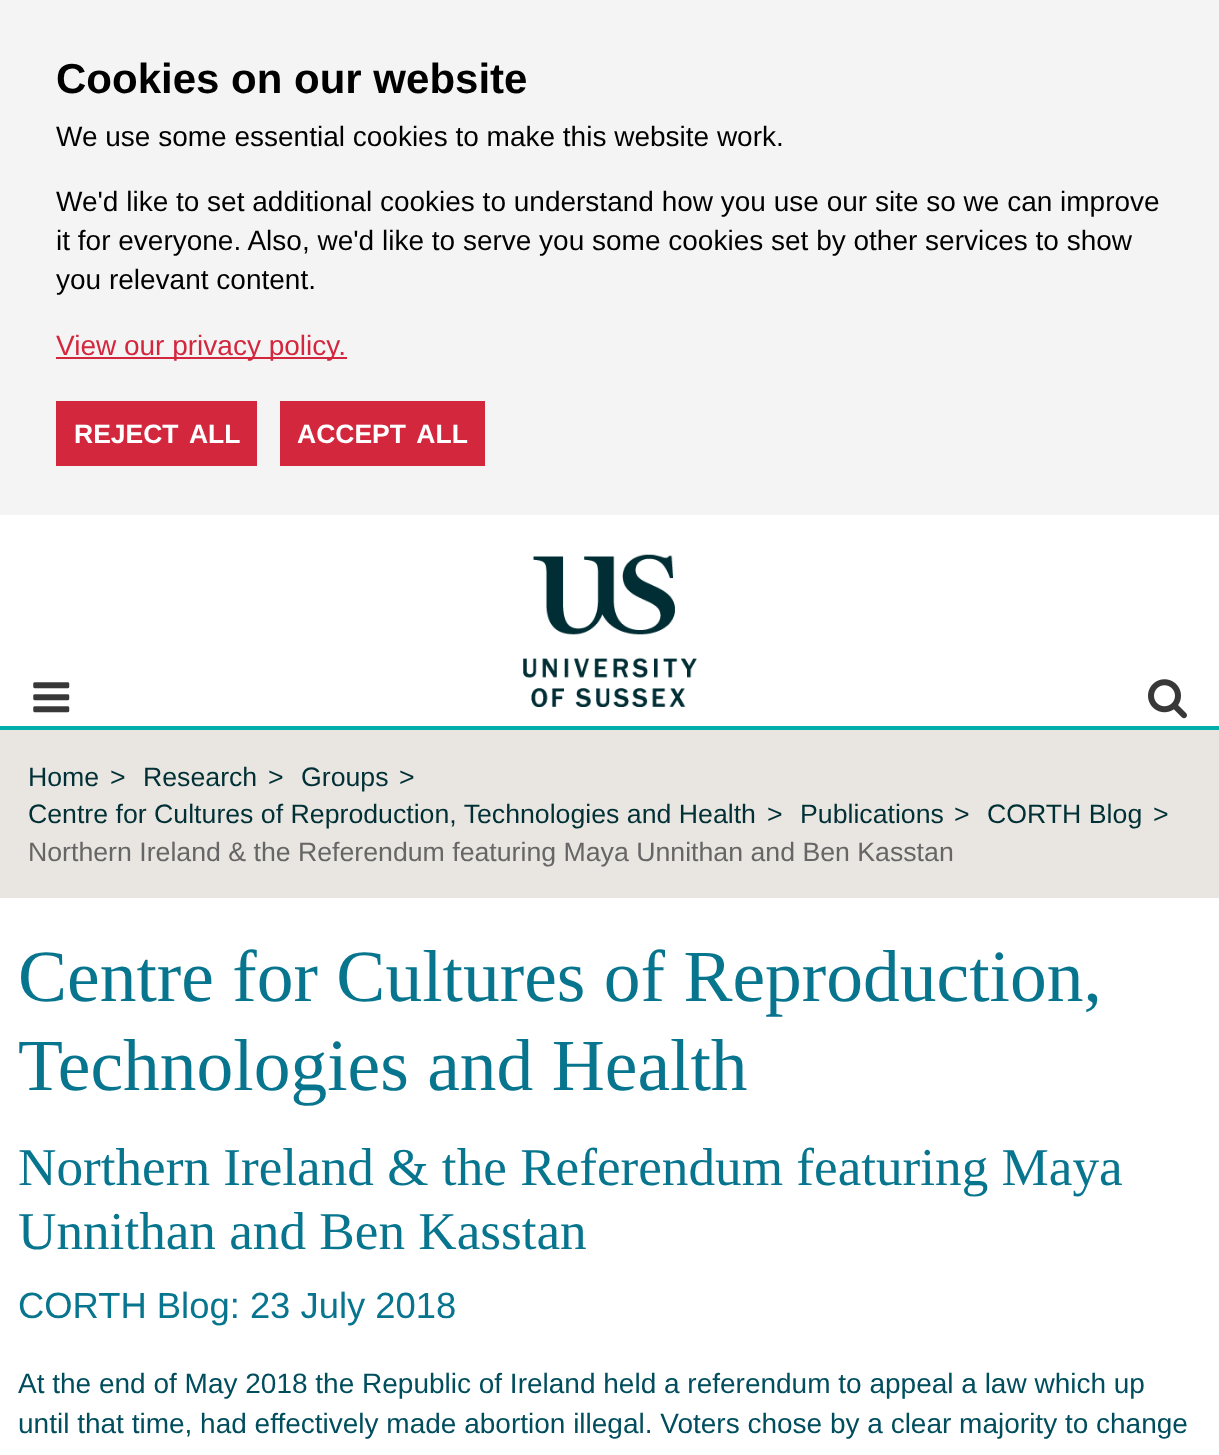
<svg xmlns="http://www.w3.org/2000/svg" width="1219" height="1455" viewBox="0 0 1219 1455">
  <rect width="100%" height="100%" fill="rgb(255,255,255)"/>
  <rect x="0" y="0" width="1219" height="515" fill="rgb(244,244,244)"/>
  <text x="56" y="93" font-family="Liberation Sans" font-size="42" font-weight="bold" fill="rgb(0,0,0)">Cookies on our website</text>
  <g font-family="Liberation Sans" font-size="28" fill="rgb(0,0,0)">
    <text x="56" y="146">We use some essential cookies to make this website work.</text>
    <text>
      <tspan x="56" y="211">We'd like to set additional cookies to understand how you use our site so we can improve</tspan>
      <tspan x="56" y="250">it for everyone. Also, we'd like to serve you some cookies set by other services to show</tspan>
      <tspan x="56" y="289">you relevant content.</tspan>
    </text>
  </g>
  <rect x="56" y="357" width="291" height="2" fill="rgb(211,39,62)"/>
  <text x="56" y="355" font-family="Liberation Sans" font-size="28" fill="rgb(211,39,62)">View our privacy policy.</text>
  <rect x="56" y="401" width="201" height="65" fill="rgb(211,39,62)"/>
  <text x="74" y="443" word-spacing="4" font-family="Liberation Sans" font-size="26.5" font-weight="bold" fill="rgb(255,255,255)">REJECT ALL</text>
  <rect x="280" y="401" width="205" height="65" fill="rgb(211,39,62)"/>
  <text x="297" y="443" word-spacing="4" font-family="Liberation Sans" font-size="26.5" font-weight="bold" fill="rgb(255,255,255)">ACCEPT ALL</text>
  <rect x="0" y="726" width="1219" height="4" fill="rgb(0,175,170)"/>
  <image x="33" y="682" width="37" height="31" href="pic1.png"/>
  <image x="523" y="554" width="174" height="153" href="pic2.png"/>
  <image x="1148" y="679" width="39" height="40" href="pic3.png"/>
  <rect x="0" y="730" width="1219" height="168" fill="rgb(233,230,225)"/>
  <g font-family="Liberation Sans" font-size="26.7" fill="rgb(0,48,53)">
    <text x="28" y="786">Home</text>
    <text x="110" y="786">&gt;</text>
    <text x="143" y="786">Research</text>
    <text x="268" y="786">&gt;</text>
    <text x="301" y="786">Groups</text>
    <text x="399" y="786">&gt;</text>
    <text x="28" y="823">Centre for Cultures of Reproduction, Technologies and Health</text>
    <text x="767" y="823">&gt;</text>
    <text x="800" y="823">Publications</text>
    <text x="954" y="823">&gt;</text>
    <text x="987" y="823">CORTH Blog</text>
    <text x="1153" y="823">&gt;</text>
  </g>
  <text x="28" y="861" font-family="Liberation Sans" font-size="26.7" fill="rgb(102,102,102)">Northern Ireland &amp; the Referendum featuring Maya Unnithan and Ben Kasstan</text>
  <g font-family="Liberation Serif" font-size="73.5" fill="rgb(8,117,143)">
    <text>
      <tspan x="18" y="1001">Centre for Cultures of Reproduction,</tspan>
      <tspan x="18" y="1090">Technologies and Health</tspan>
    </text>
  </g>
  <g font-family="Liberation Serif" font-size="53.2" fill="rgb(8,117,143)">
    <text>
      <tspan x="18" y="1185">Northern Ireland &amp; the Referendum featuring Maya</tspan>
      <tspan x="18" y="1249">Unnithan and Ben Kasstan</tspan>
    </text>
  </g>
  <text x="18" y="1318" font-family="Liberation Sans" font-size="36.4" fill="rgb(8,117,143)">CORTH Blog: 23 July 2018</text>
  <g font-family="Liberation Sans" font-size="28" fill="rgb(0,77,93)">
    <text>
      <tspan x="18" y="1393">At the end of May 2018 the Republic of Ireland held a referendum to appeal a law which up</tspan>
      <tspan x="18" y="1433">until that time, had effectively made abortion illegal. Voters chose by a clear majority to change</tspan>
    </text>
  </g>
</svg>
